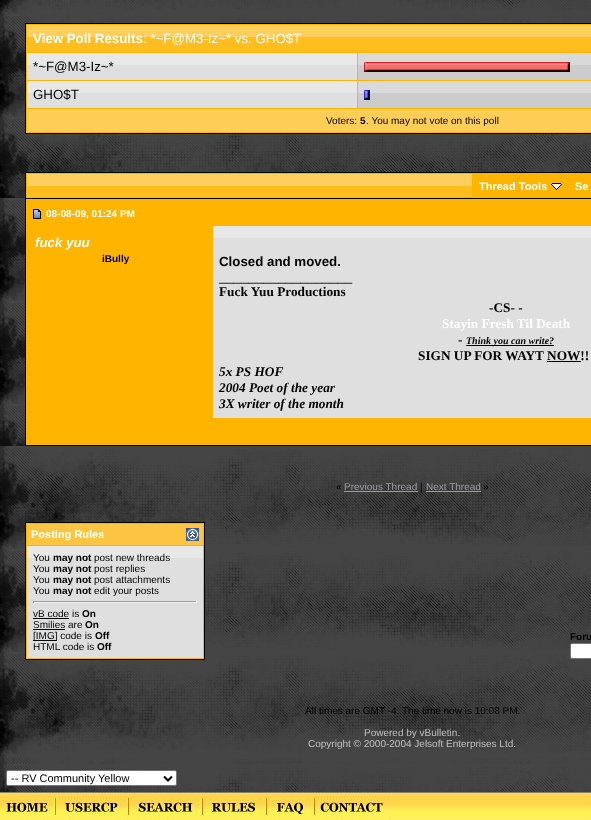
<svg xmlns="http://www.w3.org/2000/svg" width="591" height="820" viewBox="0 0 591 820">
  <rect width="100%" height="100%" fill="rgb(255,255,255)"/>
  <image x="0" y="0" width="591" height="198" href="pic1.png"/>
  <rect x="25.5" y="23.5" width="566" height="110" fill="rgb(255,180,0)" stroke="rgb(0,0,0)"/>
  <image x="27" y="25" width="564" height="27" href="pic2.png"/>
  <text x="33" y="43" font-family="Liberation Sans" font-size="13.3" font-weight="bold" fill="rgb(255,255,255)">View Poll Results</text>
  <text x="143" y="43" font-family="Liberation Sans" font-size="13.3" fill="rgb(255,255,255)">: *~F@M3-Iz~* vs. GHO$T</text>
  <rect x="27" y="65" width="330" height="15" fill="rgb(223,223,223)"/>
  <rect x="27" y="53" width="330" height="12" fill="rgb(232,232,232)"/>
  <text x="33" y="71" font-family="Liberation Sans" font-size="13.3" fill="rgb(0,0,0)">*~F@M3-Iz~*</text>
  <rect x="358" y="65" width="233" height="15" fill="rgb(204,204,204)"/>
  <rect x="358" y="53" width="233" height="12" fill="rgb(218,218,218)"/>
  <image x="364" y="62" width="3" height="10" href="pic3.png"/>
  <image x="367" y="62" width="200" height="10" href="pic4.png"/>
  <image x="567" y="62" width="3" height="10" href="pic5.png"/>
  <rect x="27" y="93" width="330" height="15" fill="rgb(223,223,223)"/>
  <rect x="27" y="81" width="330" height="12" fill="rgb(232,232,232)"/>
  <text x="33" y="99" font-family="Liberation Sans" font-size="13.3" fill="rgb(0,0,0)">GHO$T</text>
  <rect x="358" y="93" width="233" height="15" fill="rgb(204,204,204)"/>
  <rect x="358" y="81" width="233" height="12" fill="rgb(218,218,218)"/>
  <image x="364" y="90" width="3" height="10" href="pic6.png"/>
  <image x="367" y="90" width="3" height="10" href="pic7.png"/>
  <rect x="27" y="109" width="564" height="23" fill="rgb(255,206,87)"/>
  <text x="326" y="124" font-family="Liberation Sans" font-size="10" fill="rgb(0,0,0)">Voters:</text>
  <text x="360" y="124" font-family="Liberation Sans" font-size="10" font-weight="bold" fill="rgb(0,0,0)">5</text>
  <text x="366" y="124" font-family="Liberation Sans" font-size="10" fill="rgb(0,0,0)">. You may not vote on this poll</text>
  <rect x="26" y="173" width="565" height="25" fill="rgb(255,180,0)"/>
  <rect x="25" y="172" width="566" height="1" fill="rgb(0,0,0)"/>
  <rect x="25" y="172" width="1" height="26" fill="rgb(0,0,0)"/>
  <image x="27" y="174" width="445" height="23" href="pic8.png"/>
  <text x="479" y="190" font-family="Liberation Sans" font-size="11" font-weight="bold" fill="rgb(255,255,255)">Thread Tools</text>
  <image x="551" y="183" width="11" height="7" href="pic9.png"/>
  <text x="575" y="190" font-family="Liberation Sans" font-size="11" font-weight="bold" fill="rgb(255,255,255)">Se</text>
  <image x="0" y="198" width="25" height="248" href="pic10.png"/>
  <rect x="25.5" y="198.5" width="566" height="247" fill="rgb(255,180,0)" stroke="rgb(0,0,0)"/>
  <image x="33" y="209" width="8" height="10" href="pic11.png"/>
  <text x="46" y="217" font-family="Liberation Sans" font-size="10" font-weight="bold" fill="rgb(255,255,255)">08-08-09, 01:24 PM</text>
  <text x="35" y="247" font-family="Liberation Sans" font-size="13.3" font-weight="bold" font-style="italic" fill="rgb(255,255,255)">fuck yuu</text>
  <text x="102" y="262" font-family="Liberation Sans" font-size="10" font-weight="bold" fill="rgb(0,0,0)">iBully</text>
  <rect x="213" y="238" width="378" height="180" fill="rgb(223,223,223)"/>
  <rect x="213" y="226" width="378" height="12" fill="rgb(232,232,232)"/>
  <text x="219" y="266" font-family="Liberation Sans" font-size="13.3" font-weight="bold" fill="rgb(0,0,0)">Closed and moved.</text>
  <text x="219" y="281" font-family="Liberation Sans" font-size="13.3" fill="rgb(0,0,0)">__________________</text>
  <g font-family="Liberation Serif" font-size="13.3" font-weight="bold" fill="rgb(0,0,0)">
    <text x="219" y="296">Fuck Yuu Productions</text>
    <text x="489" y="312">-CS- -</text>
  </g>
  <text x="442" y="328" font-family="Liberation Serif" font-size="13.3" font-weight="bold" fill="rgb(255,255,255)">Stayin Fresh Til Death</text>
  <text x="458" y="344" font-family="Liberation Serif" font-size="13.3" font-weight="bold" fill="rgb(0,0,0)">-</text>
  <rect x="466" y="345" width="88" height="1" fill="rgb(0,0,0)"/>
  <text x="466" y="344" font-family="Liberation Serif" font-size="10" font-weight="bold" font-style="italic" fill="rgb(0,0,0)">Think you can write?</text>
  <text x="418" y="360" font-family="Liberation Serif" font-size="13.3" font-weight="bold" fill="rgb(0,0,0)">SIGN UP FOR WAYT NOW!!</text>
  <rect x="547" y="361" width="34" height="1" fill="rgb(0,0,0)"/>
  <g font-family="Liberation Serif" font-size="13.3" font-weight="bold" font-style="italic" fill="rgb(0,0,0)">
    <text>
      <tspan x="219" y="376">5x PS HOF</tspan>
      <tspan x="219" y="392">2004 Poet of the year</tspan>
      <tspan x="219" y="408">3X writer of the month</tspan>
    </text>
  </g>
  <image x="0" y="446" width="591" height="318" href="pic12.png"/>
  <text x="336" y="490" font-family="Liberation Sans" font-size="10" font-weight="bold" fill="rgb(0,0,0)">«</text>
  <text x="344" y="490" font-family="Liberation Sans" font-size="10" fill="rgb(156,156,165)">Previous Thread</text>
  <rect x="344" y="491" width="74" height="1" fill="rgb(156,156,165)"/>
  <text x="420" y="490" font-family="Liberation Sans" font-size="10" fill="rgb(0,0,0)">|</text>
  <text x="426" y="490" font-family="Liberation Sans" font-size="10" fill="rgb(156,156,165)">Next Thread</text>
  <rect x="426" y="491" width="55" height="1" fill="rgb(156,156,165)"/>
  <text x="483" y="490" font-family="Liberation Sans" font-size="10" font-weight="bold" fill="rgb(0,0,0)">»</text>
  <rect x="25.5" y="522.5" width="179" height="137" fill="rgb(255,180,0)" stroke="rgb(0,0,0)"/>
  <rect x="27" y="524" width="176" height="21" fill="rgb(251,197,65)"/>
  <text x="31" y="538" font-family="Liberation Sans" font-size="11" font-weight="bold" fill="rgb(255,255,255)">Posting Rules</text>
  <image x="186" y="528" width="13" height="13" href="pic13.png"/>
  <rect x="27" y="558" width="176" height="100" fill="rgb(223,223,223)"/>
  <rect x="27" y="546" width="176" height="12" fill="rgb(232,232,232)"/>
  <text x="33" y="561" font-family="Liberation Sans" font-size="10" fill="rgb(0,0,0)">You</text>
  <text x="53" y="561" font-family="Liberation Sans" font-size="10" font-weight="bold" fill="rgb(0,0,0)">may not</text>
  <g font-family="Liberation Sans" font-size="10" fill="rgb(0,0,0)">
    <text x="94" y="561">post new threads</text>
    <text x="33" y="572">You</text>
  </g>
  <text x="53" y="572" font-family="Liberation Sans" font-size="10" font-weight="bold" fill="rgb(0,0,0)">may not</text>
  <g font-family="Liberation Sans" font-size="10" fill="rgb(0,0,0)">
    <text x="94" y="572">post replies</text>
    <text x="33" y="583">You</text>
  </g>
  <text x="53" y="583" font-family="Liberation Sans" font-size="10" font-weight="bold" fill="rgb(0,0,0)">may not</text>
  <g font-family="Liberation Sans" font-size="10" fill="rgb(0,0,0)">
    <text x="94" y="583">post attachments</text>
    <text x="33" y="594">You</text>
  </g>
  <text x="53" y="594" font-family="Liberation Sans" font-size="10" font-weight="bold" fill="rgb(0,0,0)">may not</text>
  <text x="94" y="594" font-family="Liberation Sans" font-size="10" fill="rgb(0,0,0)">edit your posts</text>
  <rect x="33" y="601" width="164" height="1" fill="rgb(159,159,159)"/>
  <rect x="196" y="601" width="1" height="2" fill="rgb(238,238,238)"/>
  <rect x="33" y="602" width="164" height="1" fill="rgb(238,238,238)"/>
  <rect x="33" y="601" width="1" height="2" fill="rgb(159,159,159)"/>
  <text x="33" y="617" font-family="Liberation Sans" font-size="10" fill="rgb(0,0,0)">vB code is</text>
  <rect x="33" y="618" width="36" height="1" fill="rgb(0,0,0)"/>
  <text x="82" y="617" font-family="Liberation Sans" font-size="10" font-weight="bold" fill="rgb(0,0,0)">On</text>
  <text x="33" y="628" font-family="Liberation Sans" font-size="10" fill="rgb(0,0,0)">Smilies are</text>
  <rect x="33" y="629" width="32" height="1" fill="rgb(0,0,0)"/>
  <text x="85" y="628" font-family="Liberation Sans" font-size="10" font-weight="bold" fill="rgb(0,0,0)">On</text>
  <rect x="33" y="640" width="24" height="1" fill="rgb(0,0,0)"/>
  <text x="33" y="639" font-family="Liberation Sans" font-size="10" fill="rgb(0,0,0)">[IMG] code is</text>
  <text x="95" y="639" font-family="Liberation Sans" font-size="10" font-weight="bold" fill="rgb(0,0,0)">Off</text>
  <text x="33" y="650" font-family="Liberation Sans" font-size="10" fill="rgb(0,0,0)">HTML code is</text>
  <g font-family="Liberation Sans" font-size="10" font-weight="bold" fill="rgb(0,0,0)">
    <text x="97" y="650">Off</text>
    <text x="570" y="640">Foru</text>
  </g>
  <rect x="570.5" y="643.5" width="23" height="15" rx="1.5" fill="rgb(255,255,255)" stroke="rgb(118,118,118)"/>
  <text x="305" y="714" font-family="Liberation Sans" font-size="10" fill="rgb(0,0,0)">All times are GMT -4. The time now is 10:08 PM.</text>
  <g font-family="Liberation Sans" font-size="10" fill="rgb(192,192,192)">
    <text x="364" y="736">Powered by vBulletin.</text>
    <text x="308" y="747">Copyright © 2000-2004 Jelsoft Enterprises Ltd.</text>
  </g>
  <image x="0" y="764" width="591" height="28" href="pic14.png"/>
  <rect x="6.5" y="770.5" width="170" height="15" rx="1.5" fill="rgb(255,255,255)" stroke="rgb(118,118,118)"/>
  <path d="M164 776.5L168 780.5L172 776.5" fill="none" stroke="rgb(0,0,0)" stroke-width="2"/>
  <text x="11" y="782" font-family="Liberation Sans" font-size="11" fill="rgb(0,0,0)">-- RV Community Yellow</text>
  <image x="54" y="792" width="537" height="28" href="pic15.png"/>
  <image x="0" y="792" width="54" height="28" href="pic16.png"/>
  <image x="54" y="798" width="2" height="19" href="pic17.png"/>
  <image x="56" y="792" width="71" height="28" href="pic18.png"/>
  <image x="127" y="792" width="2" height="25" href="pic19.png"/>
  <image x="129" y="792" width="72" height="28" href="pic20.png"/>
  <image x="201" y="792" width="2" height="25" href="pic19.png"/>
  <image x="203" y="792" width="62" height="28" href="pic21.png"/>
  <image x="265" y="792" width="2" height="25" href="pic19.png"/>
  <image x="267" y="793" width="46" height="27" href="pic22.png"/>
  <image x="313" y="792" width="2" height="25" href="pic19.png"/>
  <image x="315" y="792" width="75" height="28" href="pic23.png"/>
</svg>
